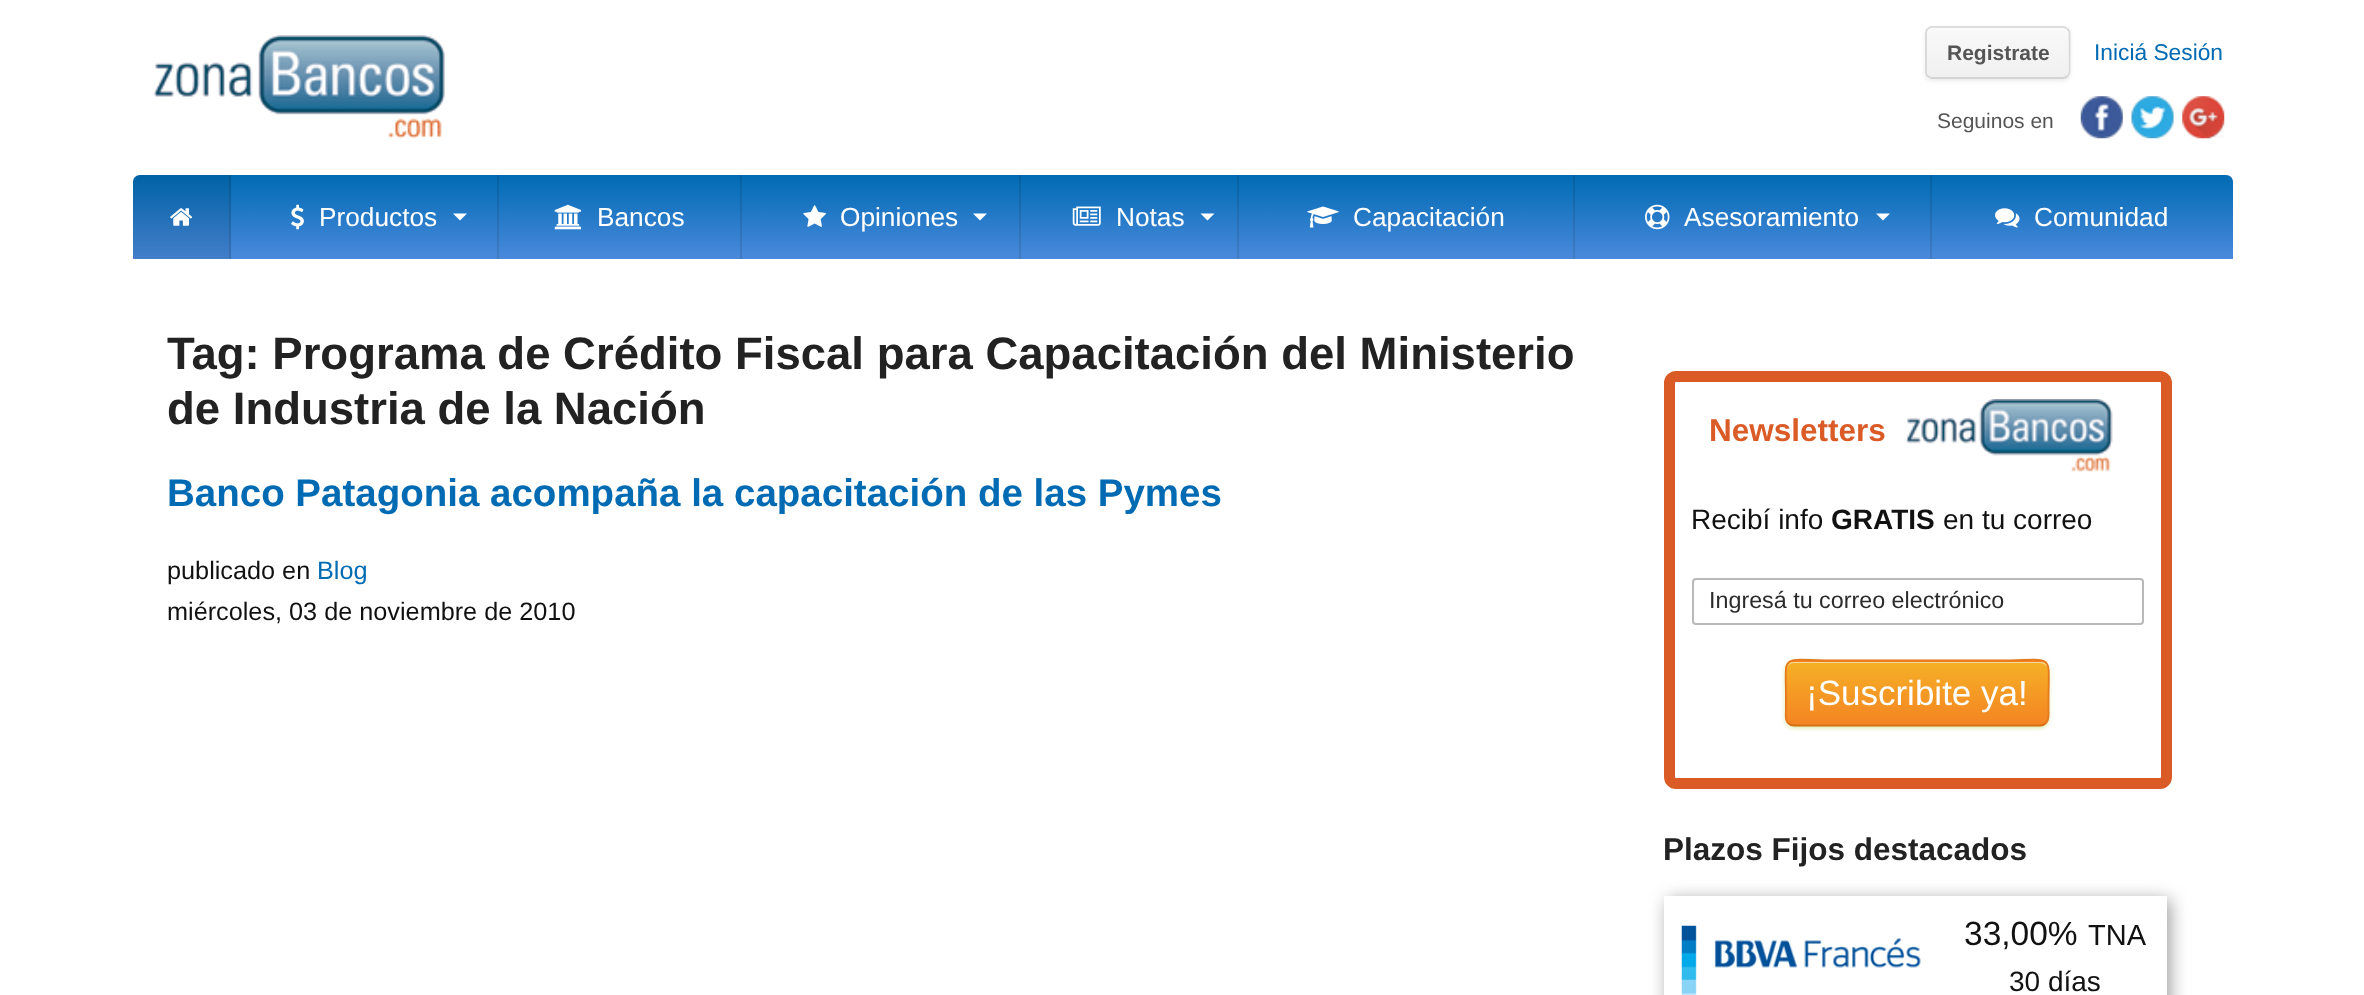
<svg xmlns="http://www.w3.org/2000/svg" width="2364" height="995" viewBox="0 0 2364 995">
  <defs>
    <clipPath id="clip1"><rect x="1925" y="26" width="145" height="53" rx="7"/></clipPath>
    <linearGradient id="g1" gradientUnits="userSpaceOnUse" x1="1927" y1="-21" x2="1927" y2="28"><stop offset="0" stop-color="rgb(249,249,249)"/><stop offset="1" stop-color="rgb(240,240,240)"/></linearGradient>
    <linearGradient id="g2" gradientUnits="userSpaceOnUse" x1="1927" y1="28" x2="1927" y2="77"><stop offset="0" stop-color="rgb(249,249,249)"/><stop offset="1" stop-color="rgb(240,240,240)"/></linearGradient>
    <linearGradient id="g3" gradientUnits="userSpaceOnUse" x1="1927" y1="77" x2="1927" y2="126"><stop offset="0" stop-color="rgb(249,249,249)"/><stop offset="1" stop-color="rgb(240,240,240)"/></linearGradient>
    <linearGradient id="g4" gradientUnits="userSpaceOnUse" x1="1183" y1="175" x2="1183" y2="259"><stop offset="0" stop-color="rgb(0,107,179)"/><stop offset="1" stop-color="rgb(74,137,220)"/></linearGradient>
    <linearGradient id="g5" gradientUnits="userSpaceOnUse" x1="1183" y1="175" x2="1183" y2="259"><stop offset="0" stop-color="rgb(0,96,161)"/><stop offset="1" stop-color="rgb(67,123,198)"/></linearGradient>
    <clipPath id="clip2"><rect x="1785" y="660" width="264" height="66" rx="9"/></clipPath>
    <linearGradient id="g6" gradientUnits="userSpaceOnUse" x1="1787" y1="599" x2="1787" y2="662"><stop offset="0" stop-color="rgb(245,176,38)"/><stop offset="1" stop-color="rgb(244,132,35)"/></linearGradient>
    <linearGradient id="g7" gradientUnits="userSpaceOnUse" x1="1787" y1="662" x2="1787" y2="725"><stop offset="0" stop-color="rgb(245,176,38)"/><stop offset="1" stop-color="rgb(244,132,35)"/></linearGradient>
    <clipPath id="clip3"><path d="M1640 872H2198V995H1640ZM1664 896H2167V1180H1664Z" clip-rule="evenodd"/></clipPath>
  </defs>
  <rect width="100%" height="100%" fill="rgb(255,255,255)"/>
  <image x="153" y="35" width="292" height="104" href="pic1.png"/>
  <rect x="1925" y="28" width="145" height="53" rx="7" fill="rgb(234,234,234)" filter="blur(2px)"/>
  <g clip-path="url(#clip1)">
    <rect x="1925" y="26" width="145" height="2" fill="url(#g1)"/>
    <rect x="1925" y="28" width="145" height="49" fill="url(#g2)"/>
    <rect x="1925" y="77" width="145" height="2" fill="url(#g3)"/>
  </g>
  <path d="M1932 30H2063C2069 30 2068 37 2068 42V75C2069 74 2069 73 2069 72V33C2069 30 2067 28 2064 28H1932C1929 28 1927 30 1927 33V35C1927 32 1929 30 1932 30Z" fill="rgb(251,251,251)"/>
  <path d="M1927.5 29C1929 28 1930.5 27 1932 27H2063C2065 27 2066.5 28 2067.5 29" fill="none" stroke="rgb(222,222,222)" stroke-width="1.8"/>
  <path d="M2067.5 29C2068.5 30 2069.5 31.5 2069.5 33V72C2069.5 73.5 2068.5 75 2067.5 76" fill="none" stroke="rgb(216,216,216)" stroke-width="1.8"/>
  <path d="M2067.5 76C2066.5 77 2065 78 2063 78H1932C1930.5 78 1929 77 1927.5 76" fill="none" stroke="rgb(211,211,211)" stroke-width="1.8"/>
  <path d="M1927.5 76C1926.5 75 1926 73.5 1926 72V33C1926 31.5 1926.5 30 1927.5 29" fill="none" stroke="rgb(216,216,216)" stroke-width="1.8"/>
  <text x="1947" y="60" font-family="Liberation Sans" font-size="21" font-weight="bold" fill="rgb(85,85,85)">Registrate</text>
  <text x="2094" y="60" font-family="Liberation Sans" font-size="22.75" fill="rgb(0,107,179)">Iniciá Sesión</text>
  <text x="1937" y="128" font-family="Liberation Sans" font-size="21" fill="rgb(85,85,85)">Seguinos en</text>
  <image x="2080" y="96" width="43" height="43" href="pic2.png"/>
  <image x="2131" y="96" width="43" height="43" href="pic3.png"/>
  <image x="2182" y="96" width="43" height="43" href="pic4.png"/>
  <path d="M140 175H2226C2230 175 2233 178 2233 182V259H133V182C133 178 136 175 140 175Z" fill="url(#g4)"/>
  <rect x="1930" y="175" width="2" height="84" fill="url(#g5)"/>
  <rect x="1573" y="175" width="2" height="84" fill="url(#g5)"/>
  <rect x="1237" y="175" width="2" height="84" fill="url(#g5)"/>
  <rect x="1019" y="175" width="2" height="84" fill="url(#g5)"/>
  <rect x="740" y="175" width="2" height="84" fill="url(#g5)"/>
  <rect x="497" y="175" width="2" height="84" fill="url(#g5)"/>
  <path d="M140 175H231V259H133V182C133 178 136 175 140 175Z" fill="rgba(0,0,0,0.08)"/>
  <rect x="229" y="175" width="2" height="84" fill="rgba(0,0,0,0.1)"/>
  <image x="170" y="208" width="23" height="18" href="pic5.png"/>
  <image x="291" y="204" width="13" height="26" href="pic6.png"/>
  <text x="319" y="226" font-family="Liberation Sans" font-size="26.25" fill="rgb(255,255,255)">Productos</text>
  <path d="M453 213.5H467L460 220.5Z" fill="rgb(255,255,255)"/>
  <image x="554" y="204" width="27" height="26" href="pic7.png"/>
  <text x="597" y="226" font-family="Liberation Sans" font-size="26.25" fill="rgb(255,255,255)">Bancos</text>
  <image x="803" y="205" width="23" height="22" href="pic8.png"/>
  <text x="840" y="226" font-family="Liberation Sans" font-size="26.25" fill="rgb(255,255,255)">Opiniones</text>
  <path d="M973 213.5H987L980 220.5Z" fill="rgb(255,255,255)"/>
  <image x="1072" y="206" width="29" height="20" href="pic9.png"/>
  <text x="1116" y="226" font-family="Liberation Sans" font-size="26.25" fill="rgb(255,255,255)">Notas</text>
  <path d="M1200.5 213.5H1214.5L1207.5 220.5Z" fill="rgb(255,255,255)"/>
  <image x="1307" y="206" width="32" height="22" href="pic10.png"/>
  <text x="1353" y="226" font-family="Liberation Sans" font-size="26.25" fill="rgb(255,255,255)">Capacitación</text>
  <image x="1645" y="204" width="25" height="26" href="pic11.png"/>
  <text x="1684" y="226" font-family="Liberation Sans" font-size="26.25" fill="rgb(255,255,255)">Asesoramiento</text>
  <path d="M1876 213.5H1890L1883 220.5Z" fill="rgb(255,255,255)"/>
  <image x="1995" y="208" width="25" height="20" href="pic12.png"/>
  <text x="2034" y="226" font-family="Liberation Sans" font-size="26.25" fill="rgb(255,255,255)">Comunidad</text>
  <g font-family="Liberation Sans" font-size="45.5" font-weight="bold" fill="rgb(34,34,34)">
    <text>
      <tspan x="167" y="369">Tag: Programa de Crédito Fiscal para Capacitación del Ministerio</tspan>
      <tspan x="167" y="424">de Industria de la Nación</tspan>
    </text>
  </g>
  <text x="167" y="506" font-family="Liberation Sans" font-size="38.5" font-weight="bold" fill="rgb(0,107,179)">Banco Patagonia acompaña la capacitación de las Pymes</text>
  <text x="167" y="579" font-family="Liberation Sans" font-size="25.25" fill="rgb(17,17,17)">publicado en</text>
  <text x="317" y="579" font-family="Liberation Sans" font-size="25.25" fill="rgb(0,107,179)">Blog</text>
  <text x="167" y="620" font-family="Liberation Sans" font-size="25.25" fill="rgb(17,17,17)">miércoles, 03 de noviembre de 2010</text>
  <rect x="1669.5" y="376.5" width="497" height="407" rx="6.5" fill="none" stroke="rgb(219,91,38)" stroke-width="11"/>
  <text x="1709" y="441" font-family="Liberation Sans" font-size="31.5" font-weight="bold" fill="rgb(219,91,39)">Newsletters</text>
  <image x="1905" y="399" width="208" height="73" href="pic13.png"/>
  <text x="1691" y="529" font-family="Liberation Sans" font-size="28" fill="rgb(17,17,17)">Recibí info</text>
  <text x="1831" y="529" font-family="Liberation Sans" font-size="28" font-weight="bold" fill="rgb(17,17,17)">GRATIS</text>
  <text x="1943" y="529" font-family="Liberation Sans" font-size="28" fill="rgb(17,17,17)">en tu correo</text>
  <rect x="1693" y="579" width="450" height="45" rx="3" fill="none" stroke="rgb(185,185,185)" stroke-width="2"/>
  <text x="1709" y="608" font-family="Liberation Sans" font-size="23.3" fill="rgb(44,44,44)">Ingresá tu correo electrónico</text>
  <rect x="1785" y="662" width="264" height="66" rx="9" fill="rgb(215,233,164)" filter="blur(2px)"/>
  <g clip-path="url(#clip2)">
    <rect x="1785" y="660" width="264" height="2" fill="url(#g6)"/>
    <rect x="1785" y="662" width="264" height="63" fill="url(#g7)"/>
  </g>
  <path d="M1794 663H2040C2044 663 2048 666 2048 670V669C2048 665 2045 662 2041 662H1794C1790 662 1787 665 1787 669V670C1787 666 1790 663 1794 663Z" fill="rgb(248,216,152)"/>
  <path d="M2046 723C2044.5 724.5 2042.5 725.5 2040.5 725.5H1794C1791.5 725.5 1789.5 724.5 1788 723" fill="none" stroke="rgb(216,111,21)" stroke-width="1.8"/>
  <path d="M1788 723C1784.5 719.5 1786 713.5 1786 709.5V701C1786 650.5 1778.5 660.5 1835 660.5H1999.5C2056 660.5 2048.5 650.5 2048.5 701V709.5C2048.5 713.5 2049.5 719.5 2046 723" fill="none" stroke="rgb(230,121,28)" stroke-width="1.8"/>
  <text x="1806" y="705" font-family="Liberation Sans" font-size="35" fill="rgb(255,255,255)">¡Suscribite ya!</text>
  <text x="1663" y="860" font-family="Liberation Sans" font-size="31.5" font-weight="bold" fill="rgb(34,34,34)">Plazos Fijos destacados</text>
  <g clip-path="url(#clip3)">
    <rect x="1668" y="900" width="502" height="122" fill="rgb(153,153,153)" filter="blur(9px)"/>
  </g>
  <image x="1681" y="925" width="240" height="70" href="pic14.png"/>
  <text x="1964" y="945" font-family="Liberation Sans" font-size="33.5" fill="rgb(17,17,17)">33,00%</text>
  <text x="2088" y="945" font-family="Liberation Sans" font-size="29" fill="rgb(17,17,17)">TNA</text>
  <text x="2009" y="991" font-family="Liberation Sans" font-size="28" fill="rgb(17,17,17)">30 días</text>
</svg>
